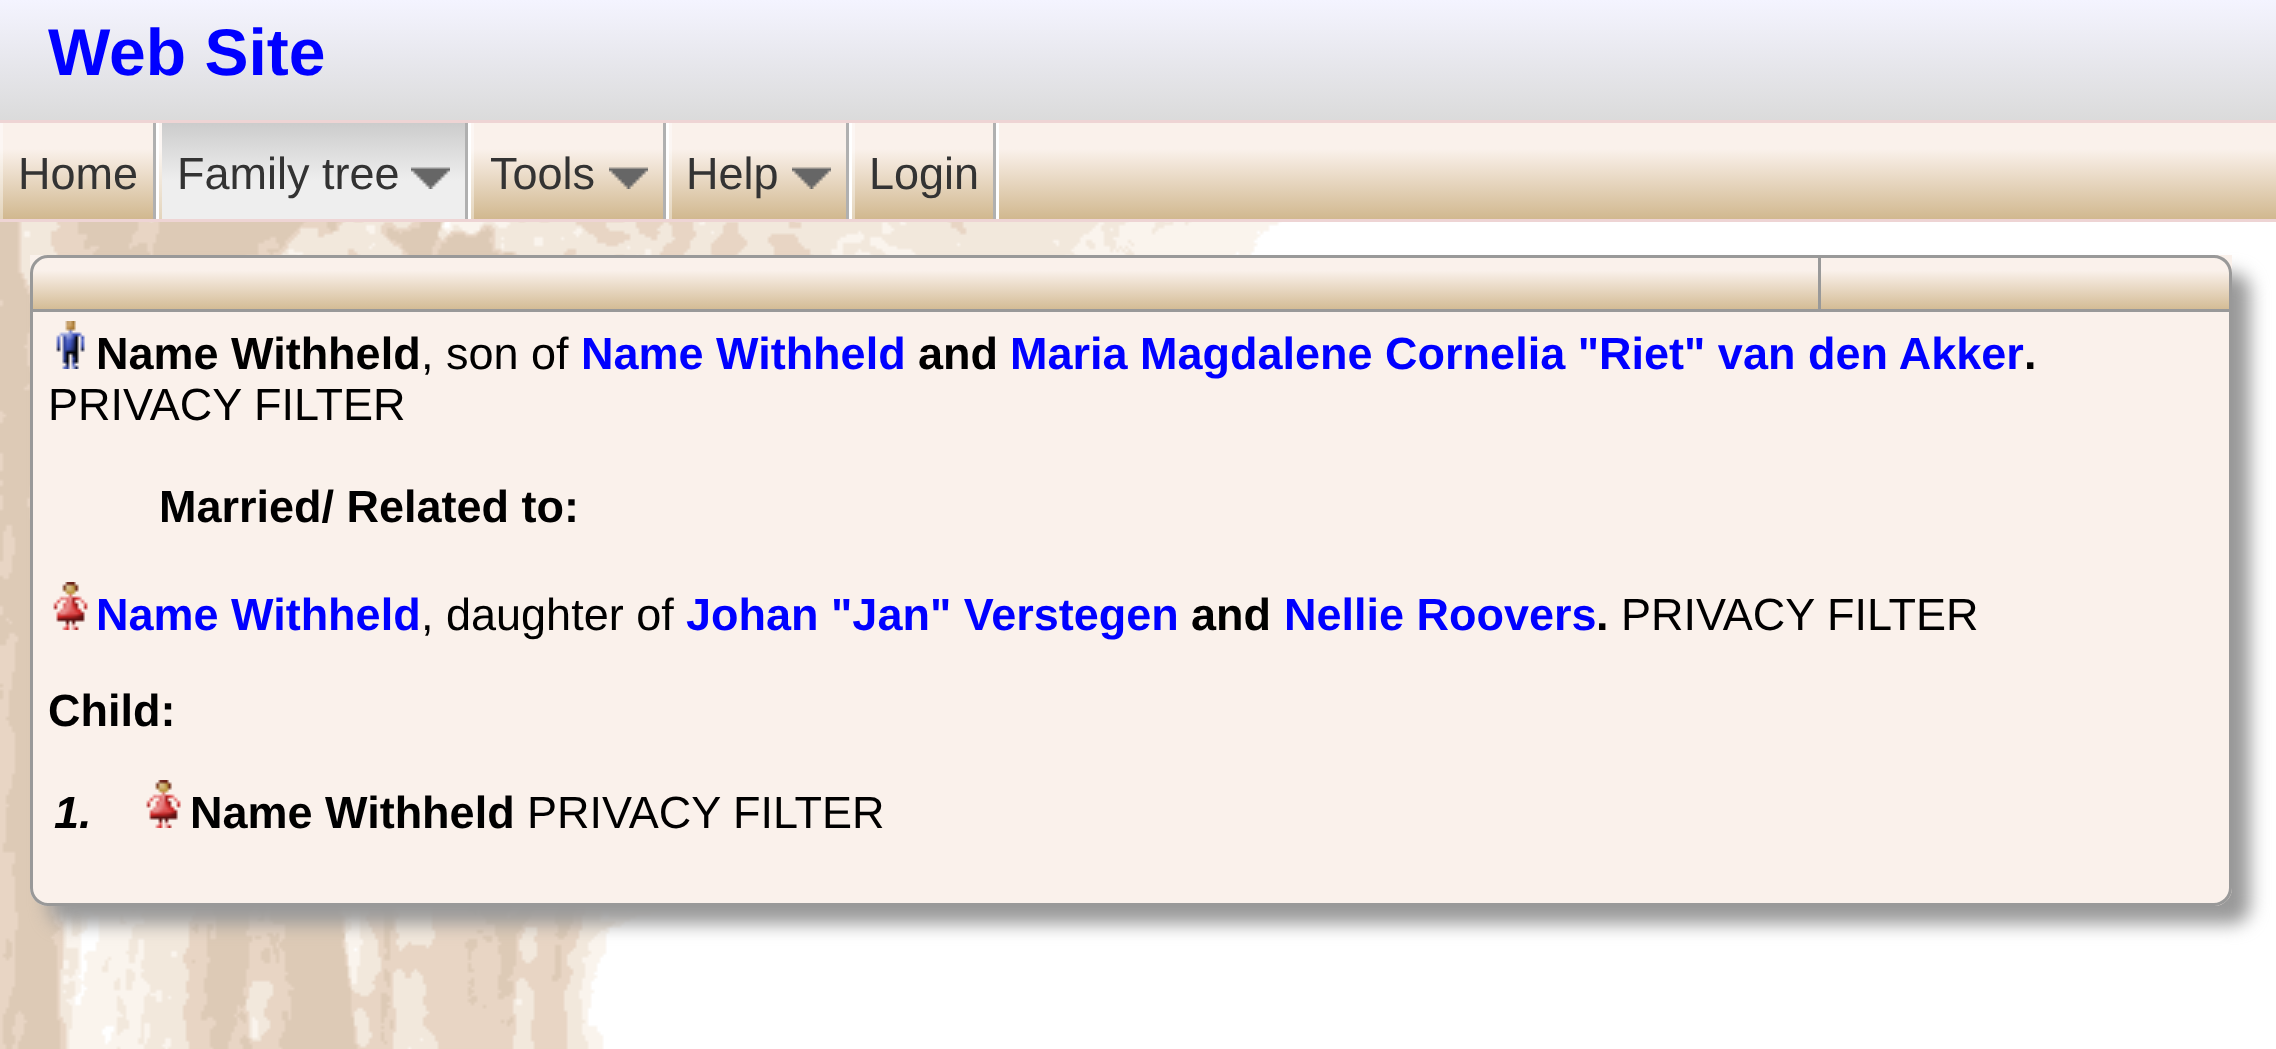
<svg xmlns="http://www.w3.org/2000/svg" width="2276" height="1049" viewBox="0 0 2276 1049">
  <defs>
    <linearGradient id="g1" gradientUnits="userSpaceOnUse" x1="1139" y1="0" x2="1139" y2="120"><stop offset="0" stop-color="rgb(244,244,255)"/><stop offset="1" stop-color="rgb(219,219,219)"/></linearGradient>
    <linearGradient id="g2" gradientUnits="userSpaceOnUse" x1="1139" y1="219" x2="1139" y2="123"><stop offset="0" stop-color="rgb(209,184,143)"/><stop offset="0.73" stop-color="rgb(250,241,235)"/></linearGradient>
    <linearGradient id="g3" gradientUnits="userSpaceOnUse" x1="314" y1="123" x2="314" y2="219"><stop offset="0" stop-color="rgb(204,204,204)"/><stop offset="0.6" stop-color="rgb(238,238,238)"/><stop offset="1" stop-color="rgb(238,238,238)"/></linearGradient>
    <linearGradient id="g4" gradientUnits="userSpaceOnUse" x1="1131" y1="312" x2="1131" y2="255"><stop offset="0" stop-color="rgb(209,184,143)"/><stop offset="0.73" stop-color="rgb(250,241,235)"/></linearGradient>
  </defs>
  <rect width="100%" height="100%" fill="rgb(255,255,255)"/>
  <image x="0" y="222" width="1456" height="827" href="pic1.png"/>
  <rect x="0" y="0" width="2276" height="120" fill="url(#g1)"/>
  <text x="48" y="75" font-family="Liberation Sans" font-size="66" font-weight="bold" fill="rgb(0,0,255)">Web Site</text>
  <rect x="0" y="123" width="2276" height="96" fill="url(#g2)"/>
  <rect x="0" y="120" width="2276" height="3" fill="rgb(238,212,212)"/>
  <rect x="0" y="219" width="2276" height="3" fill="rgb(238,212,212)"/>
  <rect x="156" y="123" width="3" height="96" fill="rgb(255,255,255)"/>
  <rect x="0" y="123" width="3" height="96" fill="rgba(255,255,255,0.4)"/>
  <rect x="153" y="123" width="3" height="96" fill="rgb(176,176,176)"/>
  <text x="18" y="189" font-family="Liberation Sans" font-size="45" fill="rgb(51,51,51)">Home</text>
  <rect x="468" y="123" width="3" height="96" fill="rgb(255,255,255)"/>
  <rect x="159" y="123" width="3" height="96" fill="rgba(255,255,255,0.4)"/>
  <rect x="162" y="123" width="303" height="96" fill="url(#g3)"/>
  <rect x="465" y="123" width="3" height="96" fill="rgb(176,176,176)"/>
  <text x="177" y="189" font-family="Liberation Sans" font-size="45" fill="rgb(51,51,51)">Family tree</text>
  <image x="411" y="167" width="39" height="22" href="pic2.png"/>
  <rect x="666" y="123" width="3" height="96" fill="rgb(255,255,255)"/>
  <rect x="471" y="123" width="3" height="96" fill="rgba(255,255,255,0.4)"/>
  <rect x="663" y="123" width="3" height="96" fill="rgb(176,176,176)"/>
  <text x="490" y="189" font-family="Liberation Sans" font-size="45" fill="rgb(51,51,51)">Tools</text>
  <image x="609" y="167" width="39" height="22" href="pic3.png"/>
  <rect x="849" y="123" width="3" height="96" fill="rgb(255,255,255)"/>
  <rect x="669" y="123" width="3" height="96" fill="rgba(255,255,255,0.4)"/>
  <rect x="846" y="123" width="3" height="96" fill="rgb(176,176,176)"/>
  <text x="686" y="189" font-family="Liberation Sans" font-size="45" fill="rgb(51,51,51)">Help</text>
  <image x="792" y="167" width="39" height="22" href="pic3.png"/>
  <rect x="996" y="123" width="3" height="96" fill="rgb(255,255,255)"/>
  <rect x="852" y="123" width="3" height="96" fill="rgba(255,255,255,0.4)"/>
  <rect x="993" y="123" width="3" height="96" fill="rgb(176,176,176)"/>
  <text x="869" y="189" font-family="Liberation Sans" font-size="45" fill="rgb(51,51,51)">Login</text>
  <rect x="48" y="273" width="2202" height="651" rx="18" fill="rgb(153,153,153)" filter="blur(9px)"/>
  <rect x="30" y="255" width="2202" height="651" rx="18" fill="rgb(250,241,235)"/>
  <rect x="30" y="255" width="2202" height="54" fill="url(#g4)"/>
  <path d="M48 256.5H1819.5V310.5H31.5V273C31.5 264 39 256.5 48 256.5Z" fill="none" stroke="rgb(153,153,153)" stroke-width="3"/>
  <path d="M1821 255H2214C2224 255 2232 263 2232 273V312H1821ZM1821 258H2214C2222 258 2229 265 2229 273V309H1821Z" fill="rgb(153,153,153)" fill-rule="evenodd"/>
  <path d="M30 312H2232V888C2232 898 2224 906 2214 906H48C38 906 30 898 30 888ZM33 312H2229V888C2229 896 2222 903 2214 903H48C40 903 33 896 33 888Z" fill="rgb(153,153,153)" fill-rule="evenodd"/>
  <image x="56" y="321" width="29" height="48" href="pic4.png"/>
  <text x="96" y="369" font-family="Liberation Sans" font-size="45" font-weight="bold" fill="rgb(0,0,0)">Name Withheld</text>
  <text x="421" y="369" font-family="Liberation Sans" font-size="45" fill="rgb(0,0,0)">, son of</text>
  <text x="581" y="369" font-family="Liberation Sans" font-size="45" font-weight="bold" fill="rgb(0,0,255)">Name Withheld</text>
  <text x="918" y="369" font-family="Liberation Sans" font-size="45" font-weight="bold" fill="rgb(0,0,0)">and</text>
  <text x="1010" y="369" font-family="Liberation Sans" font-size="45" font-weight="bold" fill="rgb(0,0,255)">Maria Magdalene Cornelia "Riet" van den Akker</text>
  <text x="2024" y="369" font-family="Liberation Sans" font-size="45" font-weight="bold" fill="rgb(0,0,0)">.</text>
  <text x="48" y="420" font-family="Liberation Sans" font-size="45" fill="rgb(0,0,0)">PRIVACY FILTER</text>
  <text x="159" y="522" font-family="Liberation Sans" font-size="45" font-weight="bold" fill="rgb(0,0,0)">Married/ Related to:</text>
  <image x="53" y="582" width="35" height="48" href="pic5.png"/>
  <text x="96" y="630" font-family="Liberation Sans" font-size="45" font-weight="bold" fill="rgb(0,0,255)">Name Withheld</text>
  <text x="421" y="630" font-family="Liberation Sans" font-size="45" fill="rgb(0,0,0)">, daughter of</text>
  <text x="686" y="630" font-family="Liberation Sans" font-size="45" font-weight="bold" fill="rgb(0,0,255)">Johan "Jan" Verstegen</text>
  <text x="1191" y="630" font-family="Liberation Sans" font-size="45" font-weight="bold" fill="rgb(0,0,0)">and</text>
  <text x="1284" y="630" font-family="Liberation Sans" font-size="45" font-weight="bold" fill="rgb(0,0,255)">Nellie Roovers</text>
  <text x="1596" y="630" font-family="Liberation Sans" font-size="45" font-weight="bold" fill="rgb(0,0,0)">.</text>
  <text x="1621" y="630" font-family="Liberation Sans" font-size="45" fill="rgb(0,0,0)">PRIVACY FILTER</text>
  <text x="48" y="726" font-family="Liberation Sans" font-size="45" font-weight="bold" fill="rgb(0,0,0)">Child:</text>
  <text x="54" y="828" font-family="Liberation Sans" font-size="45" font-weight="bold" font-style="italic" fill="rgb(0,0,0)">1.</text>
  <image x="146" y="780" width="35" height="48" href="pic5.png"/>
  <text x="190" y="828" font-family="Liberation Sans" font-size="45" font-weight="bold" fill="rgb(0,0,0)">Name Withheld</text>
  <text x="527" y="828" font-family="Liberation Sans" font-size="45" fill="rgb(0,0,0)">PRIVACY FILTER</text>
</svg>
